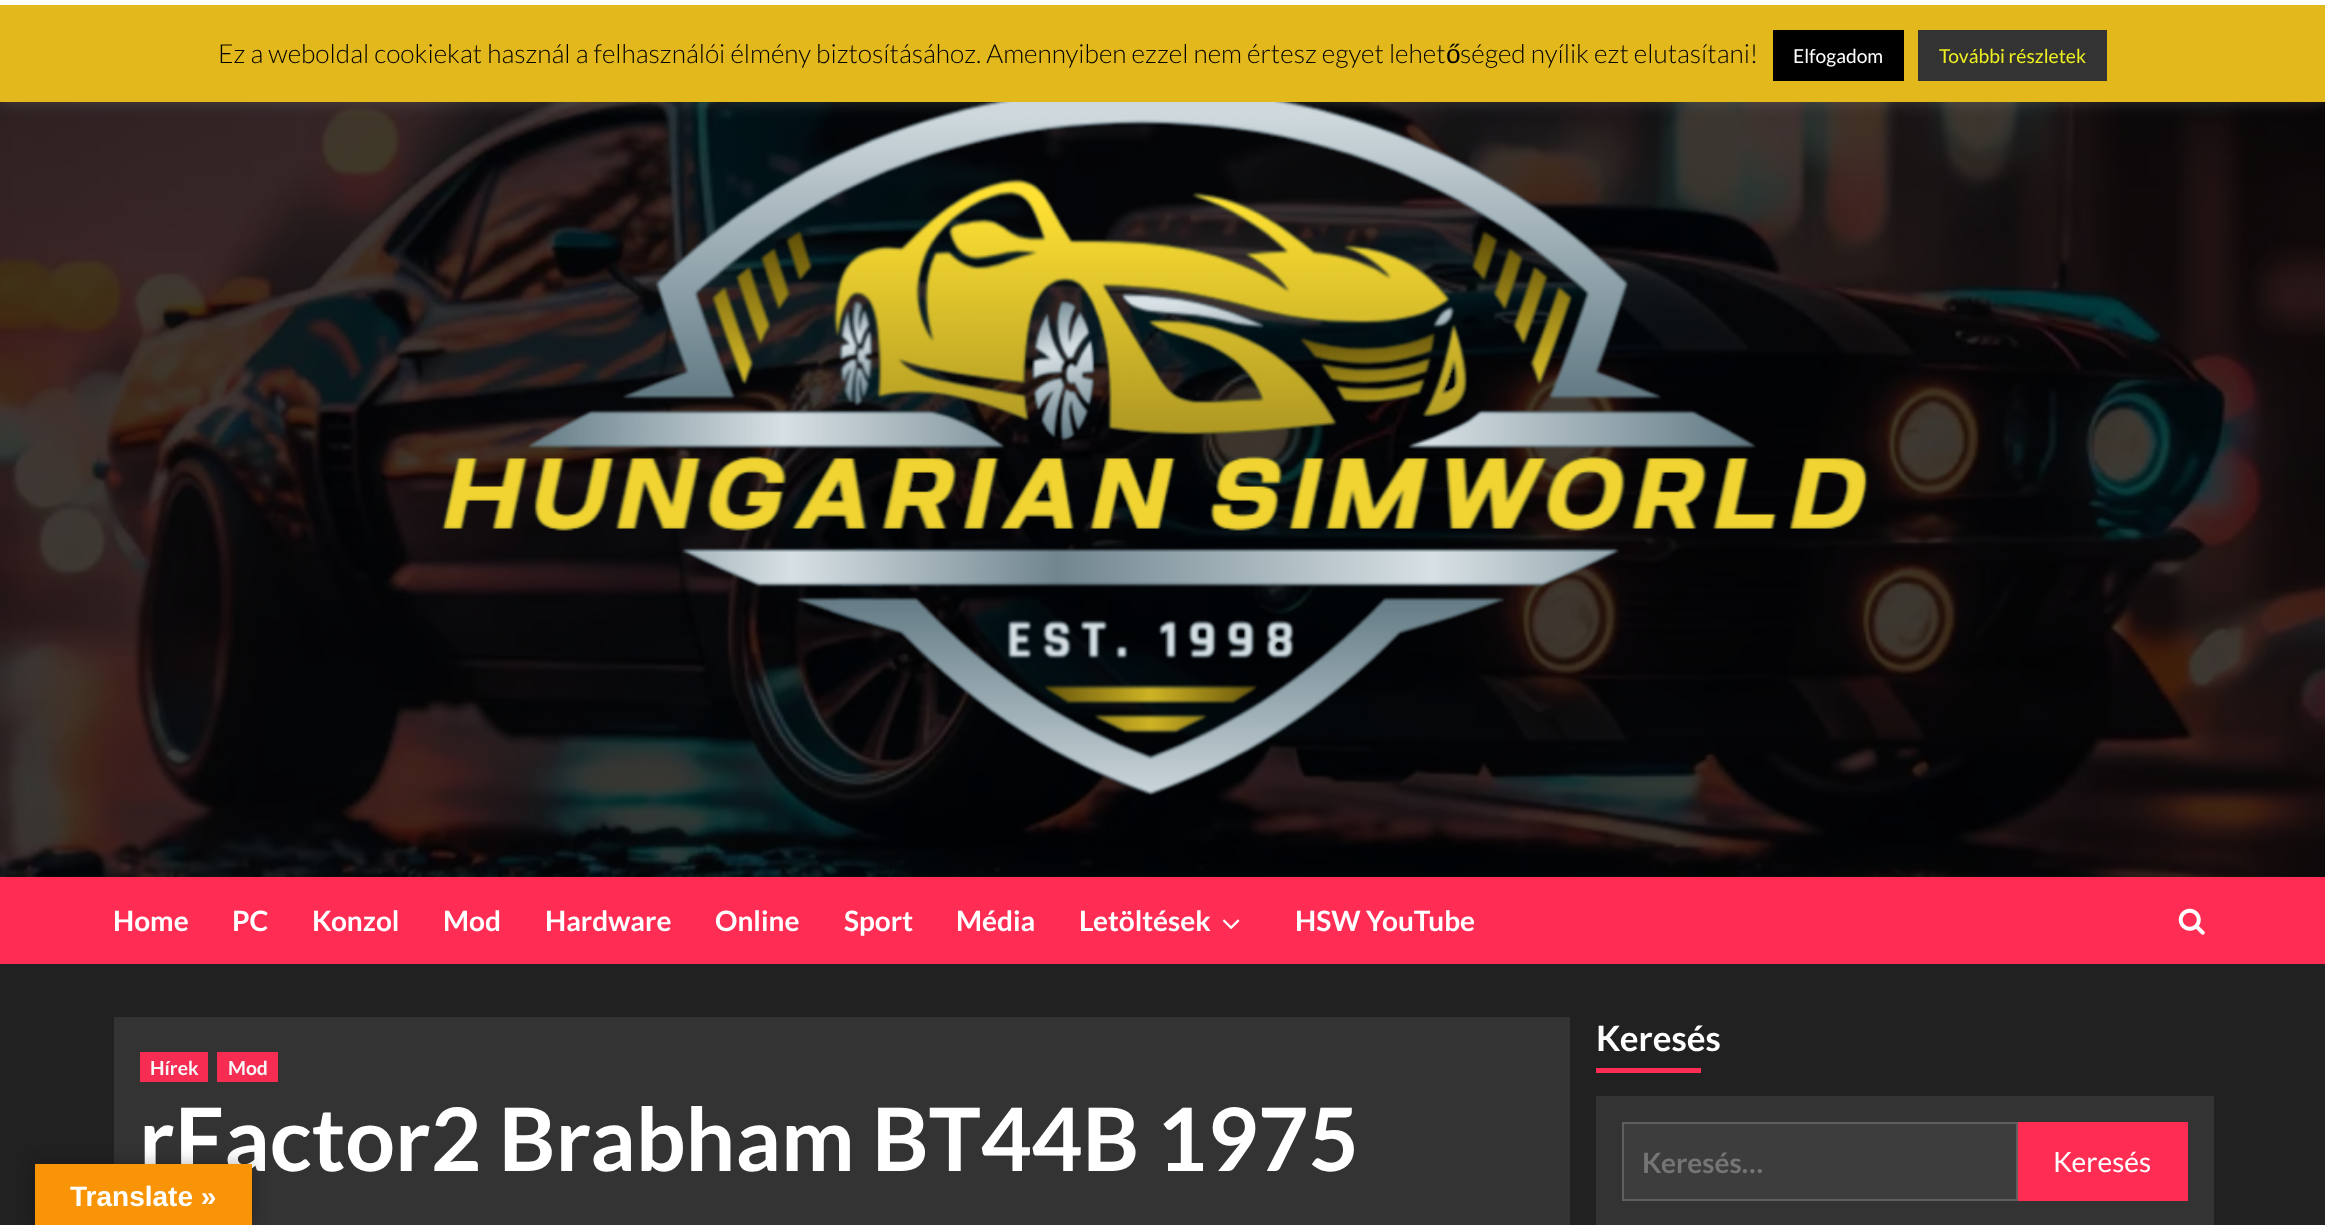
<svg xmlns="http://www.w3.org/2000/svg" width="2325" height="1225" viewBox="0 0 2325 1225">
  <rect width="100%" height="100%" fill="rgb(33,33,33)"/>
  <image x="0" y="102" width="2325" height="775" href="pic1.png"/>
  <image x="442" y="102" width="1426" height="694" href="pic2.png"/>
  <rect x="0" y="-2" width="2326" height="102" fill="rgba(172,171,171,0.3)" filter="blur(9px)"/>
  <rect x="0" y="0" width="2325" height="5" fill="rgb(255,255,255)"/>
  <rect x="0" y="5" width="2325" height="97" fill="rgb(226,184,29)"/>
  <text x="218" y="63" font-family="Lato" font-size="26.25" font-weight="300" fill="rgb(0,0,0)">Ez a weboldal cookiekat használ a felhasználói élmény biztosításához. Amennyiben ezzel nem értesz egyet lehet</text>
  <text x="1446" y="63" font-family="Liberation Sans" font-size="26.25" fill="rgb(0,0,0)">ő</text>
  <text x="1460" y="63" font-family="Lato" font-size="26.25" font-weight="300" fill="rgb(0,0,0)">séged nyílik ezt elutasítani!</text>
  <rect x="1773" y="30" width="131" height="51" fill="rgb(0,0,0)"/>
  <text x="1793" y="63" font-family="Lato" font-size="19.25" fill="rgb(255,255,255)">Elfogadom</text>
  <rect x="1918" y="30" width="189" height="51" fill="rgb(51,51,51)"/>
  <text x="1939" y="63" font-family="Lato" font-size="19.25" fill="rgb(238,238,34)">További részletek</text>
  <rect x="0" y="877" width="2325" height="87" fill="rgb(255,44,84)"/>
  <g font-family="Lato" font-size="28" font-weight="bold" fill="rgb(255,255,255)">
    <text x="113" y="931">Home</text>
    <text x="232" y="931">PC</text>
    <text x="312" y="931">Konzol</text>
    <text x="443" y="931">Mod</text>
    <text x="545" y="931">Hardware</text>
    <text x="715" y="931">Online</text>
    <text x="844" y="931">Sport</text>
    <text x="956" y="931">Média</text>
    <text x="1079" y="931">Letöltések</text>
  </g>
  <image x="1222" y="919" width="18" height="11" href="pic3.png"/>
  <text x="1295" y="931" font-family="Lato" font-size="28" font-weight="bold" fill="rgb(255,255,255)">HSW YouTube</text>
  <image x="2178" y="908" width="27" height="27" href="pic4.png"/>
  <rect x="114" y="1017" width="1456" height="208" fill="rgb(51,51,51)"/>
  <rect x="140" y="1052" width="68" height="30" fill="rgb(247,44,83)"/>
  <text x="150" y="1075" font-family="Lato" font-size="19.25" font-weight="bold" fill="rgb(247,247,247)">Hírek</text>
  <rect x="217" y="1052" width="61" height="30" fill="rgb(247,44,83)"/>
  <text x="228" y="1075" font-family="Lato" font-size="19.25" font-weight="bold" fill="rgb(247,247,247)">Mod</text>
  <text x="139" y="1171" font-family="Lato" font-size="87.5" font-weight="bold" fill="rgb(255,255,255)">rFactor2 Brabham BT44B 1975</text>
  <text x="1596" y="1051" font-family="Lato" font-size="35" font-weight="bold" fill="rgb(255,255,255)">Keresés</text>
  <rect x="1596" y="1068" width="105" height="5" fill="rgb(255,44,84)"/>
  <rect x="1596" y="1096" width="618" height="129" fill="rgb(51,51,51)"/>
  <rect x="1623" y="1123" width="394" height="77" fill="rgb(61,61,61)" stroke="rgb(95,95,95)" stroke-width="2"/>
  <text x="1642" y="1173" font-family="Lato" font-size="28" font-weight="bold" fill="rgb(117,117,117)">Keresés…</text>
  <rect x="2018" y="1122" width="170" height="79" fill="rgb(255,44,84)"/>
  <text x="2053" y="1172" font-family="Lato" font-size="28" fill="rgb(255,255,255)">Keresés</text>
  <rect x="35" y="1164" width="217" height="61" fill="rgba(0,0,0,0.3)" filter="blur(8px)"/>
  <rect x="35" y="1164" width="217" height="61" fill="rgb(248,148,6)"/>
  <text x="70" y="1206" font-family="Liberation Sans" font-size="28" font-weight="bold" fill="rgb(255,255,255)">Translate »</text>
</svg>
